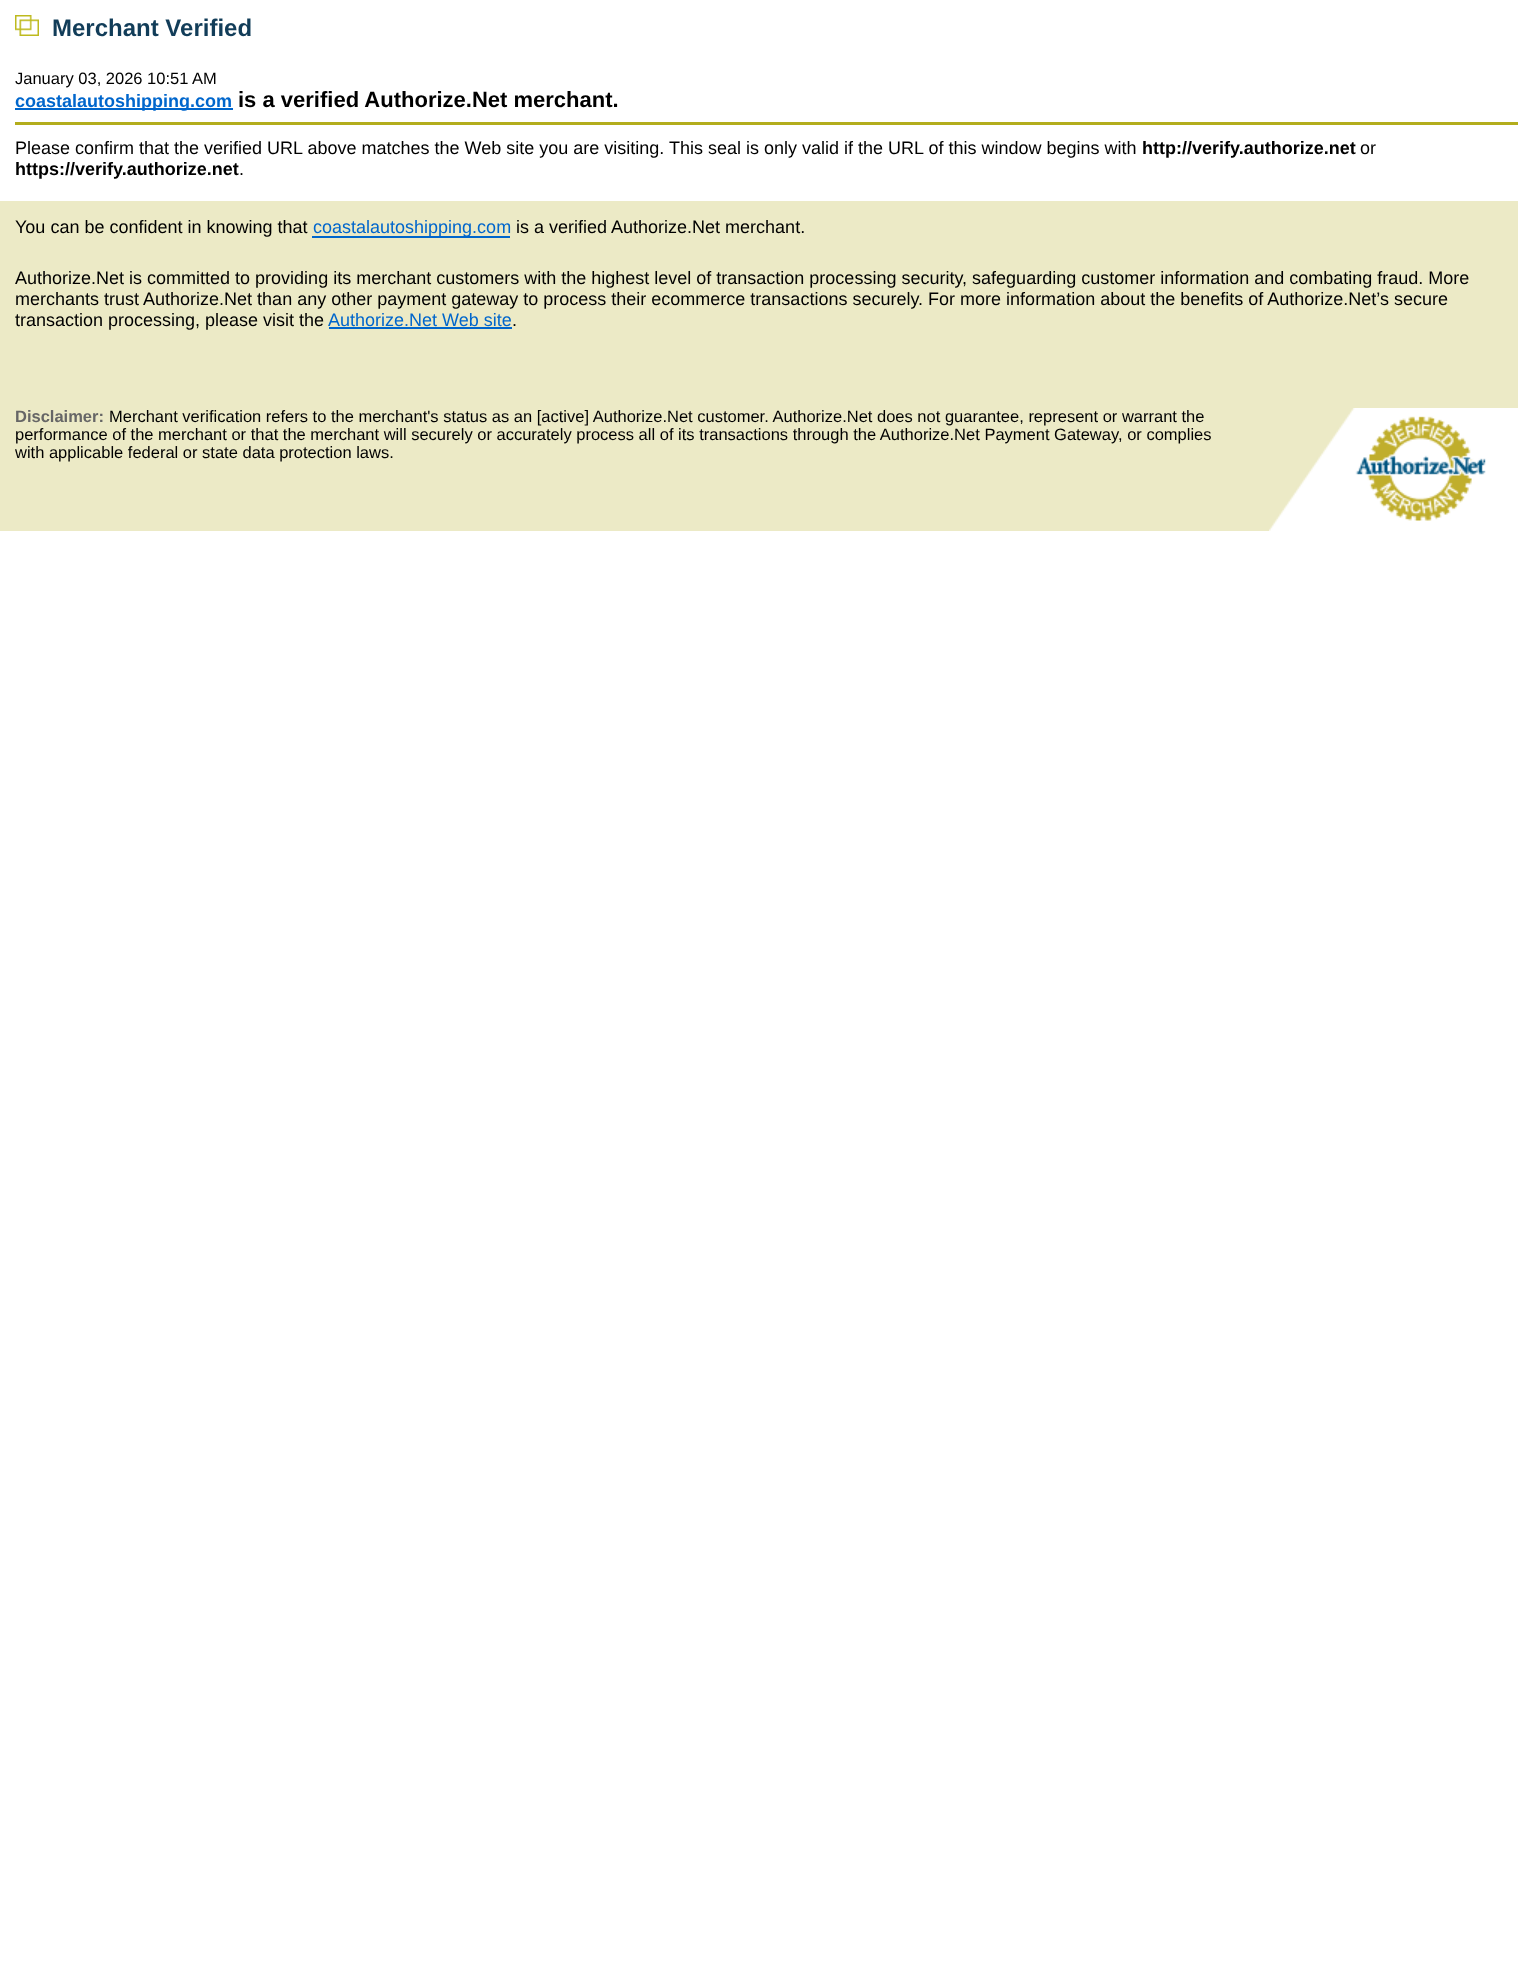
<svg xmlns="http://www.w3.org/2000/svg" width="1518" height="1969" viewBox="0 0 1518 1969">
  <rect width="100%" height="100%" fill="rgb(255,255,255)"/>
  <image x="15" y="15" width="24" height="21" href="pic1.png"/>
  <text x="52" y="36" font-family="Liberation Sans" font-size="24" font-weight="bold" fill="rgb(18,61,89)">Merchant Verified</text>
  <text x="15" y="84" font-family="Liberation Sans" font-size="16.5" fill="rgb(0,0,0)">January 03, 2026 10:51 AM</text>
  <rect x="15" y="108" width="218" height="2" fill="rgb(0,102,204)"/>
  <text x="15" y="107" font-family="Liberation Sans" font-size="18" font-weight="bold" fill="rgb(0,102,204)">coastalautoshipping.com</text>
  <text x="238" y="107" font-family="Liberation Sans" font-size="22" font-weight="bold" fill="rgb(0,0,0)">is a verified Authorize.Net merchant.</text>
  <rect x="15" y="122" width="1503" height="3" fill="rgb(179,173,28)"/>
  <g font-family="Liberation Sans" font-size="18" fill="rgb(0,0,0)">
    <text x="15" y="154">Please confirm that the verified URL above matches the Web site you are visiting.</text>
    <text x="669" y="154">This seal is only valid if the URL of this window begins with</text>
  </g>
  <text x="1142" y="154" font-family="Liberation Sans" font-size="18" font-weight="bold" fill="rgb(0,0,0)">http://verify.authorize.net</text>
  <text x="1360" y="154" font-family="Liberation Sans" font-size="18" fill="rgb(0,0,0)">or</text>
  <text x="15" y="175" font-family="Liberation Sans" font-size="18" font-weight="bold" fill="rgb(0,0,0)">https://verify.authorize.net</text>
  <text x="239" y="175" font-family="Liberation Sans" font-size="18" fill="rgb(0,0,0)">.</text>
  <rect x="0" y="201" width="1518" height="330" fill="rgb(236,234,198)"/>
  <text x="15" y="233" font-family="Liberation Sans" font-size="18" fill="rgb(0,0,0)">You can be confident in knowing that</text>
  <rect x="312" y="236" width="198" height="2" fill="rgb(0,102,204)"/>
  <text x="313" y="233" font-family="Liberation Sans" font-size="18" fill="rgb(0,102,204)">coastalautoshipping.com</text>
  <g font-family="Liberation Sans" font-size="18" fill="rgb(0,0,0)">
    <text x="516" y="233">is a verified Authorize.Net merchant.</text>
    <text>
      <tspan x="15" y="284">Authorize.Net is committed to providing its merchant customers with the highest level of transaction processing security, safeguarding customer information and combating fraud. More</tspan>
      <tspan x="15" y="305">merchants trust Authorize.Net than any other payment gateway to process their ecommerce transactions securely. For more information about the benefits of Authorize.Net’s secure</tspan>
      <tspan x="15" y="326">transaction processing,</tspan>
    </text>
    <text x="205" y="326">please visit the</text>
  </g>
  <text x="328" y="326" font-family="Liberation Sans" font-size="18" fill="rgb(0,102,204)">Authorize.Net Web site</text>
  <rect x="329" y="327" width="183" height="2" fill="rgb(0,102,204)"/>
  <text x="512" y="326" font-family="Liberation Sans" font-size="18" fill="rgb(0,0,0)">.</text>
  <text x="15" y="422" font-family="Liberation Sans" font-size="16.5" font-weight="bold" fill="rgb(102,102,102)">Disclaimer:</text>
  <g font-family="Liberation Sans" font-size="16.5" fill="rgb(0,0,0)">
    <text x="109" y="422">Merchant verification refers to the merchant's status as an [active] Authorize.Net customer. Authorize.Net does not guarantee, represent or warrant the</text>
    <text>
      <tspan x="15" y="440">performance of the merchant or that the merchant will securely or accurately process all of its transactions through the Authorize.Net Payment Gateway, or complies</tspan>
      <tspan x="15" y="458">with applicable federal or state data protection laws.</tspan>
    </text>
  </g>
  <image x="1269" y="408" width="249" height="123" href="pic2.png"/>
</svg>
